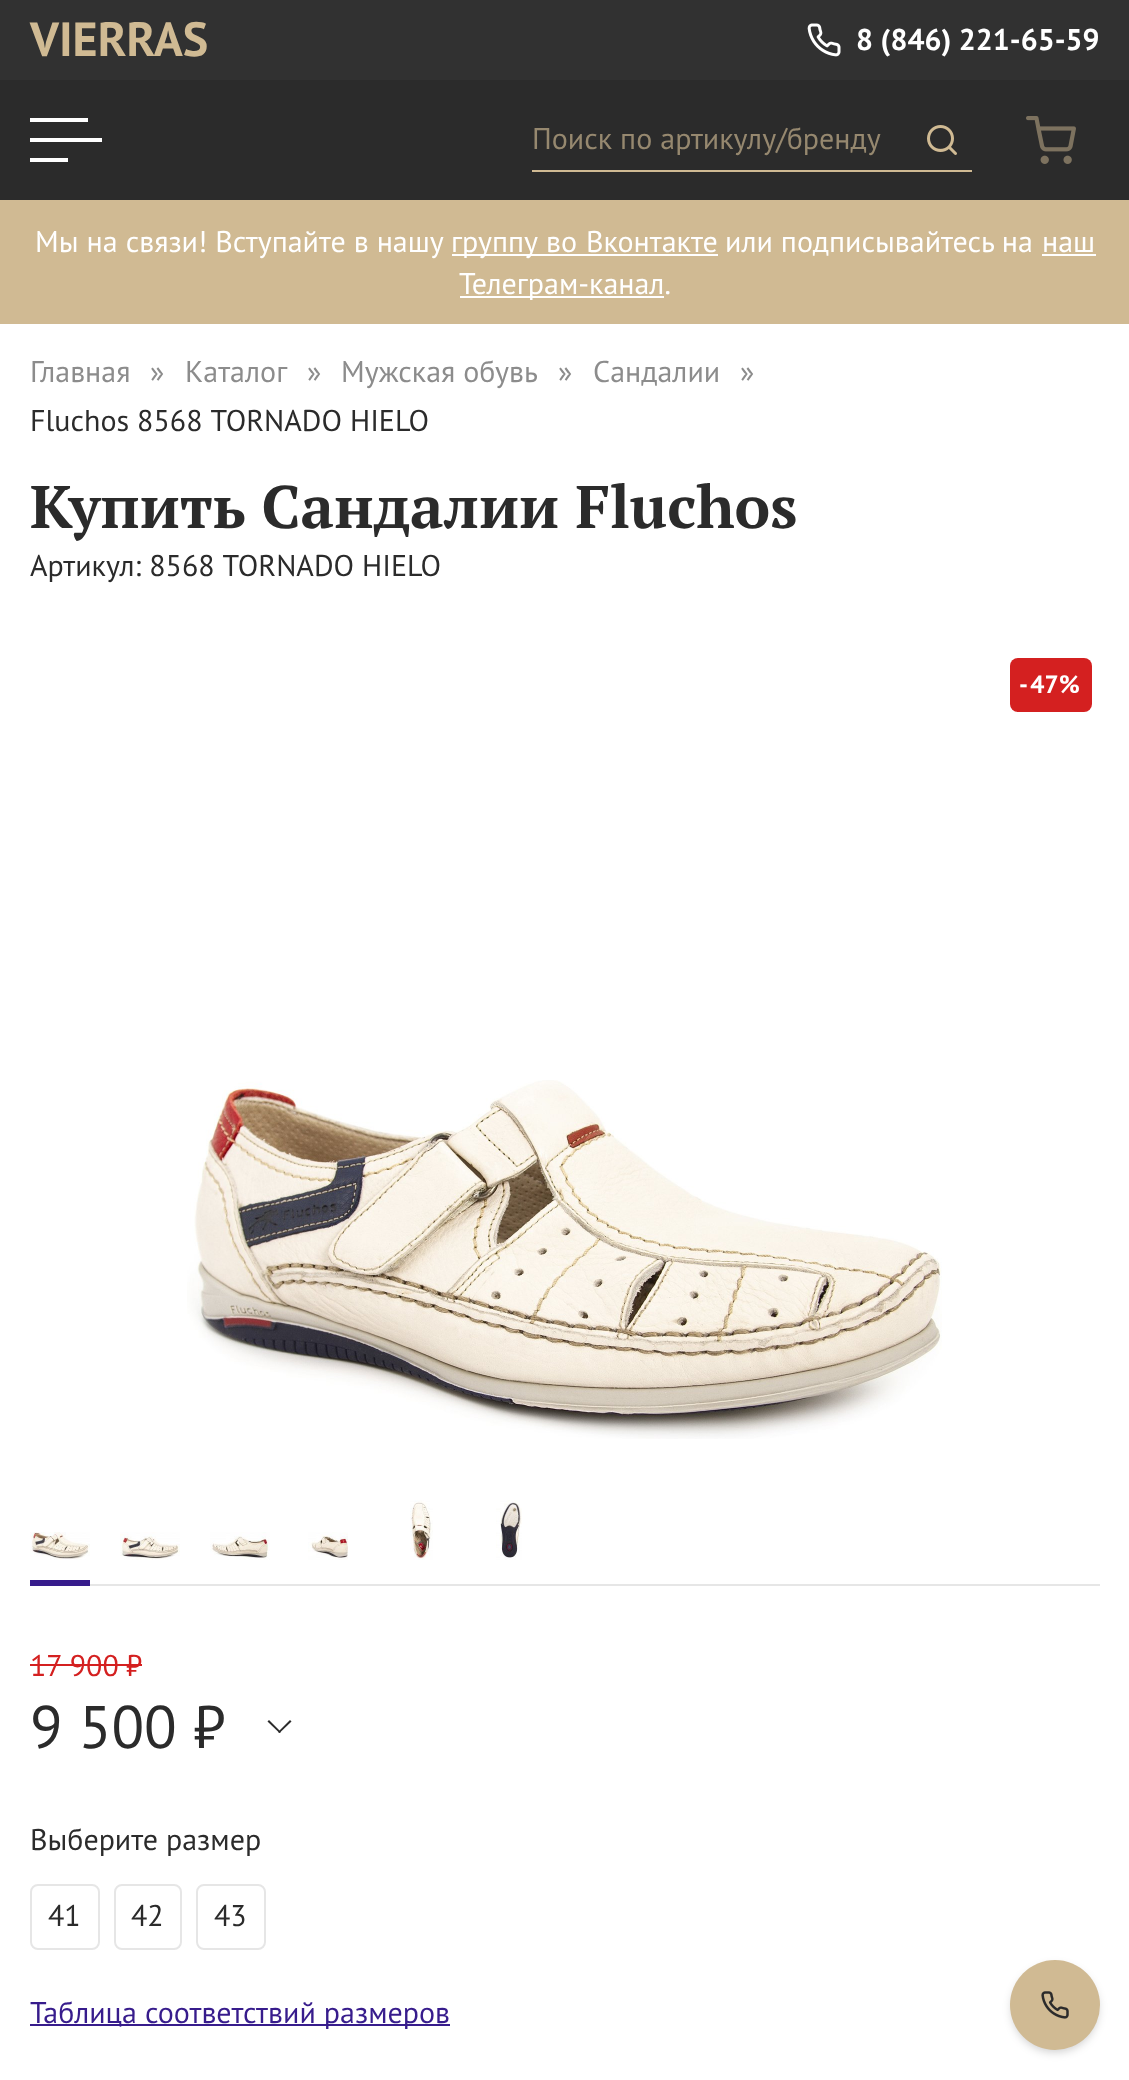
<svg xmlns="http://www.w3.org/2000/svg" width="1129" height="2080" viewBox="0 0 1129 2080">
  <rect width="100%" height="100%" fill="rgb(255,255,255)"/>
  <rect x="0" y="80" width="1129" height="120" fill="rgb(43,43,43)"/>
  <rect x="0" y="0" width="1129" height="80" fill="rgb(49,49,49)"/>
  <text x="30" y="56" font-family="PT Sans" font-size="48" font-weight="bold" fill="rgb(208,186,147)">VIERRAS</text>
  <image x="807" y="23" width="34" height="34" href="pic1.png"/>
  <text x="856" y="50" font-family="PT Sans" font-size="30" font-weight="bold" fill="rgb(255,255,255)">8 (846) 221-65-59</text>
  <rect x="30" y="118" width="58" height="4" fill="rgb(255,255,255)"/>
  <rect x="30" y="138" width="72" height="4" fill="rgb(255,255,255)"/>
  <rect x="30" y="158" width="38" height="4" fill="rgb(255,255,255)"/>
  <rect x="532" y="170" width="440" height="2" fill="rgb(208,186,147)"/>
  <text x="532" y="149" font-family="PT Sans" font-size="30" fill="rgb(150,136,111)">Поиск по артикулу/бренду</text>
  <image x="927" y="125" width="30" height="30" href="pic2.png"/>
  <image x="1026" y="116" width="50" height="48" href="pic3.png"/>
  <rect x="0" y="200" width="1129" height="124" fill="rgb(208,186,147)"/>
  <text x="35" y="252" font-family="PT Sans" font-size="30" fill="rgb(255,255,255)">Мы на связи! Вступайте в нашу</text>
  <rect x="452" y="254" width="266" height="2" fill="rgb(255,255,255)"/>
  <g font-family="PT Sans" font-size="30" fill="rgb(255,255,255)">
    <text x="451" y="252" word-spacing="1">группу во Вконтакте</text>
    <text x="725" y="252">или подписывайтесь на</text>
    <text x="1042" y="252">наш</text>
  </g>
  <rect x="1042" y="254" width="54" height="2" fill="rgb(255,255,255)"/>
  <rect x="460" y="296" width="204" height="2" fill="rgb(255,255,255)"/>
  <text x="459" y="294" font-family="PT Sans" font-size="30" fill="rgb(255,255,255)">Телеграм-канал.</text>
  <g font-family="PT Sans" font-size="30" fill="rgb(140,140,140)">
    <text x="30" y="382">Главная</text>
    <text x="150" y="382">»</text>
    <text x="185" y="382">Каталог</text>
    <text x="307" y="382">»</text>
    <text x="341" y="382">Мужская обувь</text>
    <text x="558" y="382">»</text>
    <text x="593" y="382">Сандалии</text>
    <text x="740" y="382">»</text>
  </g>
  <text x="30" y="431" font-family="PT Sans" font-size="30" fill="rgb(43,43,43)">Fluchos 8568 TORNADO HIELO</text>
  <text x="30" y="528" font-family="PT Serif" font-size="60" font-weight="bold" fill="rgb(43,43,43)">Купить Сандалии Fluchos</text>
  <text x="30" y="576" font-family="PT Sans" font-size="30" fill="rgb(43,43,43)">Артикул: 8568 TORNADO HIELO</text>
  <rect x="1010" y="658" width="82" height="54" rx="8" fill="rgb(212,32,32)"/>
  <text x="1019" y="693" word-spacing="-2" font-family="PT Sans" font-size="25" font-weight="bold" fill="rgb(255,255,255)">- 47%</text>
  <image x="187" y="1080" width="755" height="359" href="pic4.png"/>
  <rect x="90" y="1584" width="1010" height="2" fill="rgb(230,230,230)"/>
  <rect x="30" y="1580" width="60" height="6" fill="rgb(55,28,140)"/>
  <image x="30" y="1532" width="60" height="28" href="pic5.png"/>
  <image x="120" y="1532" width="60" height="28" href="pic6.png"/>
  <image x="210" y="1532" width="60" height="28" href="pic7.png"/>
  <image x="308" y="1532" width="40" height="28" href="pic8.png"/>
  <image x="410" y="1500" width="23" height="60" href="pic9.png"/>
  <image x="496" y="1500" width="26" height="60" href="pic10.png"/>
  <text x="30" y="1676" word-spacing="-1" font-family="PT Sans" font-size="30" fill="rgb(212,32,32)">17 900 ₽</text>
  <rect x="30" y="1664" width="112" height="2" fill="rgb(212,32,32)"/>
  <text x="30" y="1748" font-family="PT Sans" font-size="60" fill="rgb(43,43,43)">9 500 ₽</text>
  <path d="M290 1720L291.5 1721.5L279.5 1733L278 1732Z" fill="rgb(43,43,43)"/>
  <path d="M269 1720L281 1732L279.5 1733L267.5 1721.5Z" fill="rgb(43,43,43)"/>
  <text x="30" y="1850" font-family="PT Sans" font-size="30" fill="rgb(43,43,43)">Выберите размер</text>
  <rect x="31" y="1885" width="68" height="64" rx="7" fill="none" stroke="rgb(230,230,230)" stroke-width="2"/>
  <text x="48" y="1926" font-family="PT Sans" font-size="30" fill="rgb(43,43,43)">41</text>
  <rect x="115" y="1885" width="66" height="64" rx="7" fill="none" stroke="rgb(230,230,230)" stroke-width="2"/>
  <text x="131" y="1926" font-family="PT Sans" font-size="30" fill="rgb(43,43,43)">42</text>
  <rect x="197" y="1885" width="68" height="64" rx="7" fill="none" stroke="rgb(230,230,230)" stroke-width="2"/>
  <text x="214" y="1926" font-family="PT Sans" font-size="30" fill="rgb(43,43,43)">43</text>
  <rect x="30" y="2024" width="420" height="2" fill="rgb(55,28,140)"/>
  <text x="30" y="2023" font-family="PT Sans" font-size="30" fill="rgb(55,28,140)">Таблица соответствий размеров</text>
  <rect x="1012" y="1966" width="86" height="86" rx="43" fill="rgba(0,0,0,0.2)" filter="blur(5px)"/>
  <circle cx="1055" cy="2005" r="45" fill="rgb(208,186,147)"/>
  <image x="1041" y="1991" width="28" height="28" href="pic11.png"/>
</svg>
